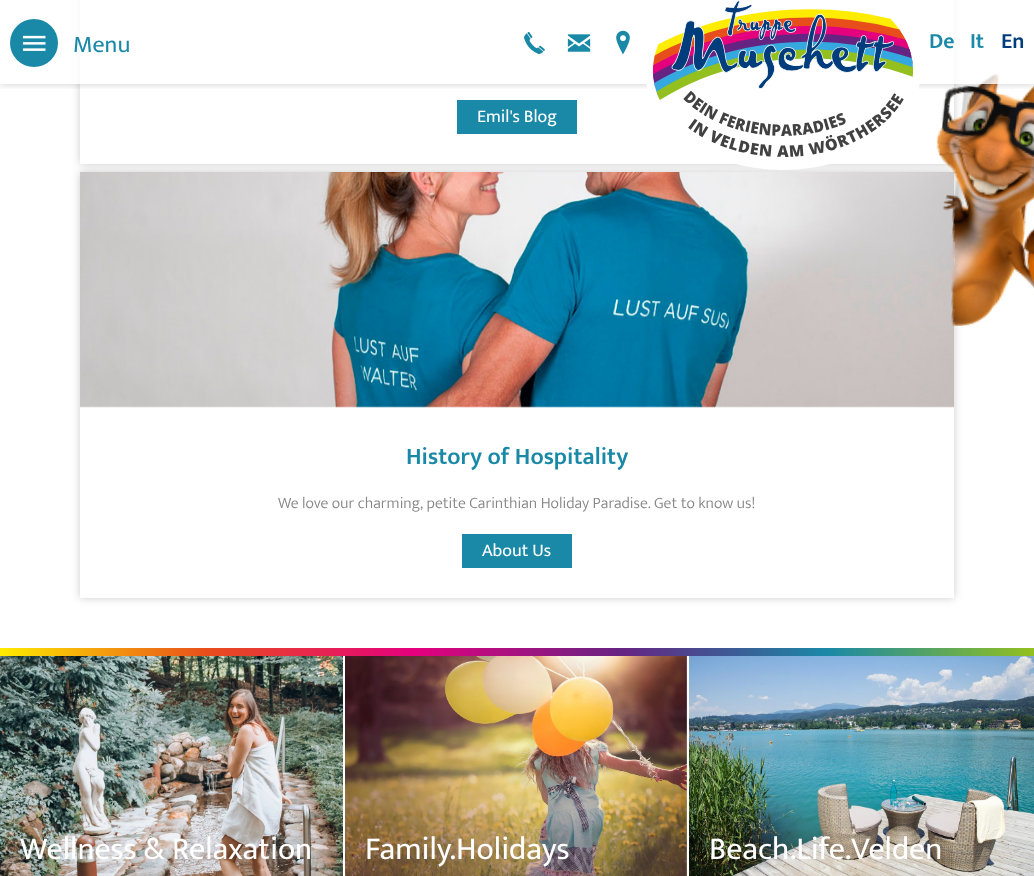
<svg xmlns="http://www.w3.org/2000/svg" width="1034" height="876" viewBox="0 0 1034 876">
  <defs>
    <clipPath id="clip1"><path d="M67 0H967V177H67ZM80-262H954V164H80Z" clip-rule="evenodd"/></clipPath>
    <clipPath id="clip2"><path d="M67 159H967V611H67ZM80 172H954V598H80Z" clip-rule="evenodd"/></clipPath>
    <clipPath id="clip3"><rect x="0" y="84" width="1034" height="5"/></clipPath>
    <linearGradient id="g1" gradientUnits="userSpaceOnUse" x1="0" y1="652" x2="1034" y2="652"><stop offset="0" stop-color="rgb(255,236,0)"/><stop offset="0.2" stop-color="rgb(232,78,27)"/><stop offset="0.4" stop-color="rgb(229,0,126)"/><stop offset="0.6" stop-color="rgb(102,36,130)"/><stop offset="0.8" stop-color="rgb(26,137,167)"/><stop offset="1" stop-color="rgb(147,192,31)"/></linearGradient>
  </defs>
  <rect width="100%" height="100%" fill="rgb(255,255,255)"/>
  <g clip-path="url(#clip1)">
    <rect x="80" y="-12" width="874" height="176" fill="rgba(0,0,0,0.2)" filter="blur(4px)"/>
  </g>
  <g clip-path="url(#clip2)">
    <rect x="80" y="172" width="874" height="426" fill="rgba(0,0,0,0.2)" filter="blur(4px)"/>
  </g>
  <image x="80" y="172" width="874" height="236" href="pic6.png"/>
  <image x="935" y="73" width="99" height="253" href="pic7.png"/>
  <g clip-path="url(#clip3)">
    <rect x="0" y="0" width="1034" height="84" fill="rgba(0,0,0,0.2)" filter="blur(4px)"/>
  </g>
  <rect x="74" y="0" width="926" height="84" fill="rgba(255,255,255,0.8)"/>
  <circle cx="34" cy="43" r="24" fill="rgb(26,137,167)"/>
  <image x="22" y="35" width="24" height="16" href="pic1.png"/>
  <text x="73" y="52" font-family="Mukta" font-size="24" fill="rgb(26,137,167)">Menu</text>
  <image x="523" y="31" width="22" height="24" href="pic2.png"/>
  <image x="567" y="34" width="24" height="18" href="pic3.png"/>
  <image x="616" y="30" width="14" height="25" href="pic4.png"/>
  <image x="645" y="0" width="275" height="170" href="pic5.png"/>
  <g font-family="Mukta" font-size="22" font-weight="600" fill="rgb(26,137,167)">
    <text x="929" y="48">De</text>
    <text x="970" y="48">It</text>
  </g>
  <text x="1001" y="48" font-family="Mukta" font-size="22" font-weight="600" fill="rgb(0,61,124)">En</text>
  <rect x="457" y="100" width="120" height="34" fill="rgb(26,137,167)"/>
  <text x="477" y="122" font-family="Mukta" font-size="18" fill="rgb(255,255,255)">Emil's Blog</text>
  <text x="406" y="464" font-family="Mukta" font-size="24" font-weight="600" fill="rgb(26,137,167)">History of Hospitality</text>
  <text x="278" y="508" font-family="Mukta" font-size="16" font-weight="300" fill="rgb(134,134,134)">We love our charming, petite Carinthian Holiday Paradise. Get to know us!</text>
  <rect x="462" y="534" width="110" height="34" fill="rgb(26,137,167)"/>
  <text x="482" y="556" font-family="Mukta" font-size="18" fill="rgb(255,255,255)">About Us</text>
  <rect x="0" y="648" width="1034" height="8" fill="url(#g1)"/>
  <image x="0" y="656" width="343" height="220" href="pic8.png"/>
  <text x="20" y="859" font-family="Mukta" font-size="32" fill="rgb(255,255,255)">Wellness &amp; Relaxation</text>
  <image x="345" y="656" width="342" height="220" href="pic9.png"/>
  <text x="365" y="859" font-family="Mukta" font-size="32" fill="rgb(255,255,255)">Family.Holidays</text>
  <image x="689" y="656" width="345" height="220" href="pic10.png"/>
  <text x="709" y="859" font-family="Mukta" font-size="32" fill="rgb(255,255,255)">Beach.Life.Velden</text>
</svg>
